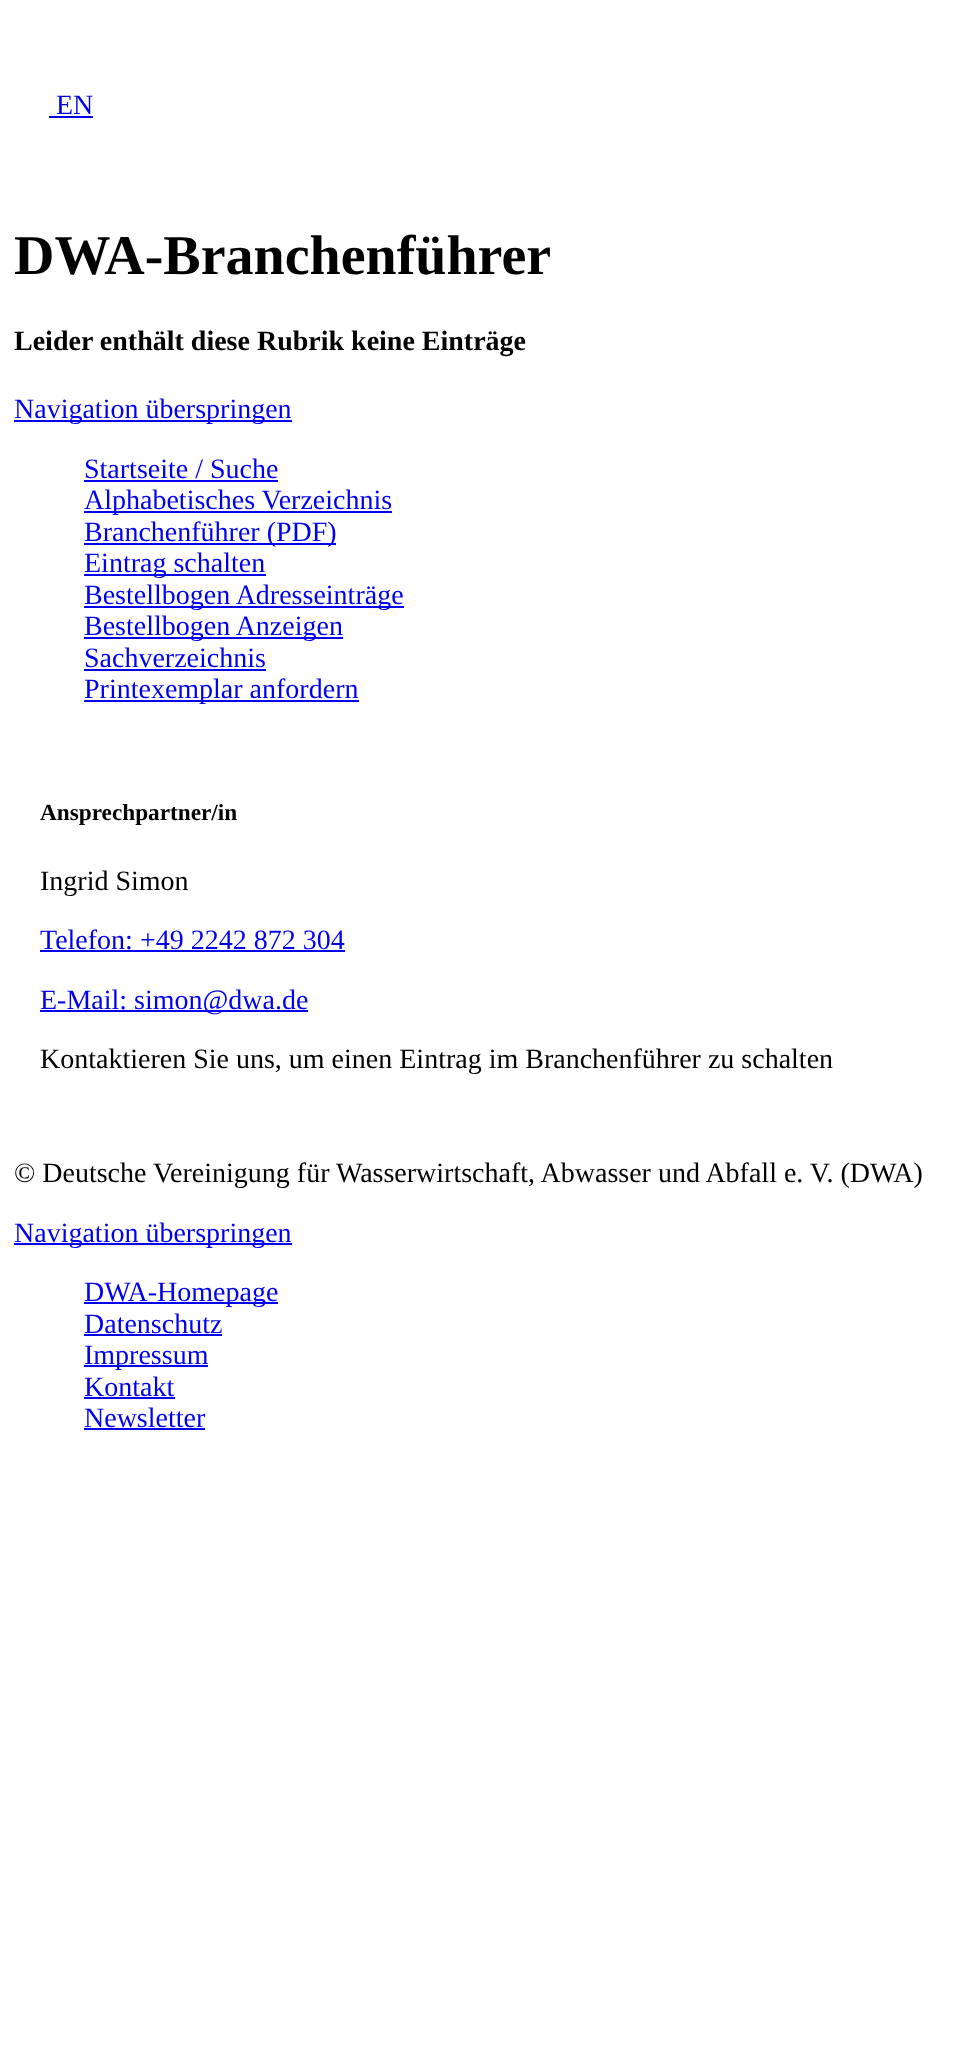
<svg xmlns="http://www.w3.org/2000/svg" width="956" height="2061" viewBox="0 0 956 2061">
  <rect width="100%" height="100%" fill="rgb(255,255,255)"/>
  <text x="56" y="114" font-family="Liberation Serif" font-size="28" fill="rgb(0,0,238)">EN</text>
  <rect x="49" y="116" width="44" height="2" fill="rgb(0,0,238)"/>
  <text x="14" y="274" font-family="Liberation Serif" font-size="56" font-weight="bold" fill="rgb(0,0,0)">DWA-Branchenführer</text>
  <text x="14" y="350" font-family="Liberation Serif" font-size="28" font-weight="bold" fill="rgb(0,0,0)">Leider enthält diese Rubrik keine Einträge</text>
  <rect x="14" y="420" width="278" height="2" fill="rgb(0,0,238)"/>
  <g font-family="Liberation Serif" font-size="28" fill="rgb(0,0,238)">
    <text x="14" y="418">Navigation überspringen</text>
    <text x="84" y="478">Startseite / Suche</text>
  </g>
  <rect x="84" y="480" width="194" height="2" fill="rgb(0,0,238)"/>
  <rect x="84" y="511" width="308" height="2" fill="rgb(0,0,238)"/>
  <text x="84" y="509" font-family="Liberation Serif" font-size="28" fill="rgb(0,0,238)">Alphabetisches Verzeichnis</text>
  <rect x="84" y="543" width="252" height="2" fill="rgb(0,0,238)"/>
  <text x="84" y="541" font-family="Liberation Serif" font-size="28" fill="rgb(0,0,238)">Branchenführer (PDF)</text>
  <rect x="84" y="574" width="182" height="2" fill="rgb(0,0,238)"/>
  <text x="84" y="572" font-family="Liberation Serif" font-size="28" fill="rgb(0,0,238)">Eintrag schalten</text>
  <rect x="84" y="606" width="320" height="2" fill="rgb(0,0,238)"/>
  <text x="84" y="604" font-family="Liberation Serif" font-size="28" fill="rgb(0,0,238)">Bestellbogen Adresseinträge</text>
  <rect x="84" y="637" width="259" height="2" fill="rgb(0,0,238)"/>
  <g font-family="Liberation Serif" font-size="28" fill="rgb(0,0,238)">
    <text>
      <tspan x="84" y="635">Bestellbogen Anzeigen</tspan>
      <tspan x="84" y="667">Sachverzeichnis</tspan>
    </text>
  </g>
  <rect x="84" y="669" width="182" height="2" fill="rgb(0,0,238)"/>
  <rect x="84" y="700" width="275" height="2" fill="rgb(0,0,238)"/>
  <text x="84" y="698" font-family="Liberation Serif" font-size="28" fill="rgb(0,0,238)">Printexemplar anfordern</text>
  <text x="40" y="820" font-family="Liberation Serif" font-size="23.25" font-weight="bold" fill="rgb(0,0,0)">Ansprechpartner/in</text>
  <text x="40" y="890" font-family="Liberation Serif" font-size="28" fill="rgb(0,0,0)">Ingrid Simon</text>
  <text x="40" y="949" font-family="Liberation Serif" font-size="28" fill="rgb(0,0,238)">Telefon: +49 2242 872 304</text>
  <rect x="40" y="950" width="305" height="2" fill="rgb(0,0,238)"/>
  <rect x="40" y="1010" width="268" height="2" fill="rgb(0,0,238)"/>
  <text x="40" y="1009" font-family="Liberation Serif" font-size="28" fill="rgb(0,0,238)">E-Mail: simon@dwa.de</text>
  <g font-family="Liberation Serif" font-size="28" fill="rgb(0,0,0)">
    <text x="40" y="1068">Kontaktieren Sie uns, um einen Eintrag im Branchenführer zu schalten</text>
    <text x="14" y="1182">© Deutsche Vereinigung für Wasserwirtschaft, Abwasser und Abfall e. V. (DWA)</text>
  </g>
  <rect x="14" y="1243" width="278" height="2" fill="rgb(0,0,238)"/>
  <text x="14" y="1242" font-family="Liberation Serif" font-size="28" fill="rgb(0,0,238)">Navigation überspringen</text>
  <rect x="84" y="1302" width="194" height="2" fill="rgb(0,0,238)"/>
  <g font-family="Liberation Serif" font-size="28" fill="rgb(0,0,238)">
    <text>
      <tspan x="84" y="1301">DWA-Homepage</tspan>
      <tspan x="84" y="1333">Datenschutz</tspan>
    </text>
  </g>
  <rect x="84" y="1334" width="138" height="2" fill="rgb(0,0,238)"/>
  <rect x="84" y="1365" width="124" height="2" fill="rgb(0,0,238)"/>
  <g font-family="Liberation Serif" font-size="28" fill="rgb(0,0,238)">
    <text>
      <tspan x="84" y="1364">Impressum</tspan>
      <tspan x="84" y="1396">Kontakt</tspan>
    </text>
  </g>
  <rect x="84" y="1397" width="91" height="2" fill="rgb(0,0,238)"/>
  <text x="84" y="1427" font-family="Liberation Serif" font-size="28" fill="rgb(0,0,238)">Newsletter</text>
  <rect x="84" y="1428" width="121" height="2" fill="rgb(0,0,238)"/>
</svg>
